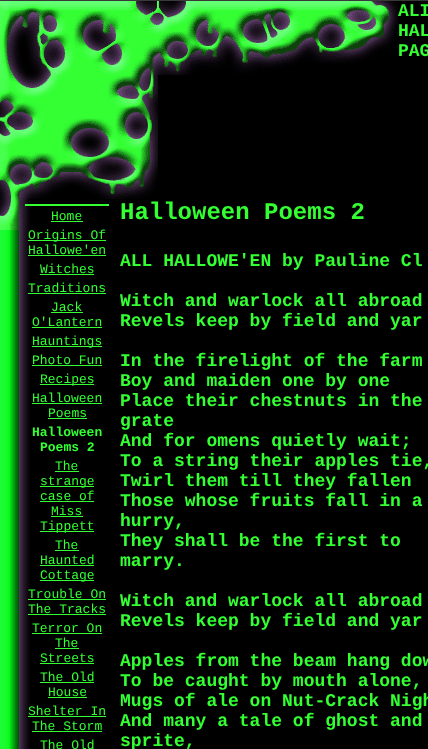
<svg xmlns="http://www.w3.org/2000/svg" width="428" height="749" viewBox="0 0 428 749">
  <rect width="100%" height="100%" fill="rgb(0,0,0)"/>
  <image x="0" y="199" width="30" height="550" href="pic1.png"/>
  <rect x="0" y="0" width="428" height="1" fill="rgb(57,57,57)"/>
  <image x="0" y="1" width="398" height="74" href="pic2.png"/>
  <image x="0" y="75" width="158" height="124" href="pic3.png"/>
  <g font-family="Liberation Mono" font-size="18" font-weight="bold" fill="rgb(51,255,51)">
    <text>
      <tspan x="398" y="16">ALI</tspan>
      <tspan x="398" y="36">HAL</tspan>
      <tspan x="398" y="56">PAG</tspan>
    </text>
  </g>
  <image x="0" y="199" width="25" height="31" href="pic4.png"/>
  <rect x="25" y="204" width="84" height="2" fill="rgb(51,255,51)"/>
  <text x="51" y="220" font-family="Liberation Mono" font-size="13" fill="rgb(51,255,51)">Home</text>
  <rect x="51" y="221" width="32" height="1" fill="rgb(51,255,51)"/>
  <rect x="28" y="240" width="78" height="1" fill="rgb(51,255,51)"/>
  <g font-family="Liberation Mono" font-size="13" fill="rgb(51,255,51)">
    <text>
      <tspan x="28" y="239">Origins Of</tspan>
      <tspan x="28" y="254">Hallowe'en</tspan>
    </text>
  </g>
  <rect x="28" y="255" width="78" height="1" fill="rgb(51,255,51)"/>
  <text x="40" y="273" font-family="Liberation Mono" font-size="13" fill="rgb(51,255,51)">Witches</text>
  <rect x="40" y="274" width="54" height="1" fill="rgb(51,255,51)"/>
  <text x="28" y="292" font-family="Liberation Mono" font-size="13" fill="rgb(51,255,51)">Traditions</text>
  <rect x="28" y="293" width="78" height="1" fill="rgb(51,255,51)"/>
  <text x="51" y="311" font-family="Liberation Mono" font-size="13" fill="rgb(51,255,51)">Jack</text>
  <rect x="51" y="312" width="32" height="1" fill="rgb(51,255,51)"/>
  <text x="32" y="326" font-family="Liberation Mono" font-size="13" fill="rgb(51,255,51)">O'Lantern</text>
  <rect x="32" y="327" width="70" height="1" fill="rgb(51,255,51)"/>
  <rect x="32" y="346" width="70" height="1" fill="rgb(51,255,51)"/>
  <g font-family="Liberation Mono" font-size="13" fill="rgb(51,255,51)">
    <text>
      <tspan x="32" y="345">Hauntings</tspan>
      <tspan x="32" y="364">Photo Fun</tspan>
    </text>
  </g>
  <rect x="32" y="365" width="70" height="1" fill="rgb(51,255,51)"/>
  <rect x="40" y="384" width="54" height="1" fill="rgb(51,255,51)"/>
  <g font-family="Liberation Mono" font-size="13" fill="rgb(51,255,51)">
    <text x="40" y="383">Recipes</text>
    <text x="32" y="402">Halloween</text>
  </g>
  <rect x="32" y="403" width="70" height="1" fill="rgb(51,255,51)"/>
  <text x="48" y="417" font-family="Liberation Mono" font-size="13" fill="rgb(51,255,51)">Poems</text>
  <rect x="48" y="418" width="39" height="1" fill="rgb(51,255,51)"/>
  <g font-family="Liberation Mono" font-size="13" font-weight="bold" fill="rgb(51,255,51)">
    <text x="32" y="436">Halloween</text>
    <text x="40" y="451">Poems 2</text>
  </g>
  <text x="55" y="470" font-family="Liberation Mono" font-size="13" fill="rgb(51,255,51)">The</text>
  <rect x="55" y="471" width="24" height="1" fill="rgb(51,255,51)"/>
  <rect x="40" y="486" width="54" height="1" fill="rgb(51,255,51)"/>
  <g font-family="Liberation Mono" font-size="13" fill="rgb(51,255,51)">
    <text>
      <tspan x="40" y="485">strange</tspan>
      <tspan x="40" y="500">case of</tspan>
    </text>
  </g>
  <rect x="40" y="501" width="54" height="1" fill="rgb(51,255,51)"/>
  <text x="51" y="515" font-family="Liberation Mono" font-size="13" fill="rgb(51,255,51)">Miss</text>
  <rect x="51" y="516" width="32" height="1" fill="rgb(51,255,51)"/>
  <rect x="40" y="531" width="54" height="1" fill="rgb(51,255,51)"/>
  <g font-family="Liberation Mono" font-size="13" fill="rgb(51,255,51)">
    <text x="40" y="530">Tippett</text>
    <text x="55" y="549">The</text>
  </g>
  <rect x="55" y="550" width="24" height="1" fill="rgb(51,255,51)"/>
  <text x="40" y="564" font-family="Liberation Mono" font-size="13" fill="rgb(51,255,51)">Haunted</text>
  <rect x="40" y="565" width="54" height="1" fill="rgb(51,255,51)"/>
  <rect x="40" y="580" width="54" height="1" fill="rgb(51,255,51)"/>
  <g font-family="Liberation Mono" font-size="13" fill="rgb(51,255,51)">
    <text x="40" y="579">Cottage</text>
    <text x="28" y="598">Trouble On</text>
  </g>
  <rect x="28" y="599" width="78" height="1" fill="rgb(51,255,51)"/>
  <text x="28" y="613" font-family="Liberation Mono" font-size="13" fill="rgb(51,255,51)">The Tracks</text>
  <rect x="28" y="614" width="78" height="1" fill="rgb(51,255,51)"/>
  <text x="32" y="632" font-family="Liberation Mono" font-size="13" fill="rgb(51,255,51)">Terror On</text>
  <rect x="32" y="633" width="70" height="1" fill="rgb(51,255,51)"/>
  <text x="55" y="647" font-family="Liberation Mono" font-size="13" fill="rgb(51,255,51)">The</text>
  <rect x="55" y="648" width="24" height="1" fill="rgb(51,255,51)"/>
  <text x="40" y="662" font-family="Liberation Mono" font-size="13" fill="rgb(51,255,51)">Streets</text>
  <rect x="40" y="663" width="54" height="1" fill="rgb(51,255,51)"/>
  <text x="40" y="681" font-family="Liberation Mono" font-size="13" fill="rgb(51,255,51)">The Old</text>
  <rect x="40" y="682" width="54" height="1" fill="rgb(51,255,51)"/>
  <text x="48" y="696" font-family="Liberation Mono" font-size="13" fill="rgb(51,255,51)">House</text>
  <rect x="48" y="697" width="39" height="1" fill="rgb(51,255,51)"/>
  <text x="28" y="715" font-family="Liberation Mono" font-size="13" fill="rgb(51,255,51)">Shelter In</text>
  <rect x="28" y="716" width="78" height="1" fill="rgb(51,255,51)"/>
  <text x="32" y="730" font-family="Liberation Mono" font-size="13" fill="rgb(51,255,51)">The Storm</text>
  <rect x="32" y="731" width="70" height="1" fill="rgb(51,255,51)"/>
  <text x="40" y="749" font-family="Liberation Mono" font-size="13" fill="rgb(51,255,51)">The Old</text>
  <text x="120" y="219" font-family="Liberation Mono" font-size="24" font-weight="bold" fill="rgb(51,255,51)">Halloween Poems 2</text>
  <g font-family="Liberation Mono" font-size="18" font-weight="bold" fill="rgb(51,255,51)">
    <text x="120" y="266">ALL HALLOWE'EN by Pauline Cl</text>
    <text>
      <tspan x="120" y="306">Witch and warlock all abroad</tspan>
      <tspan x="120" y="326">Revels keep by field and yar</tspan>
    </text>
    <text>
      <tspan x="120" y="366">In the firelight of the farm</tspan>
      <tspan x="120" y="386">Boy and maiden one by one</tspan>
      <tspan x="120" y="406">Place their chestnuts in the</tspan>
      <tspan x="120" y="426">grate</tspan>
      <tspan x="120" y="446">And for omens quietly wait;</tspan>
      <tspan x="120" y="466">To a string their apples tie,</tspan>
      <tspan x="120" y="486">Twirl them till they fallen</tspan>
      <tspan x="120" y="506">Those whose fruits fall in a</tspan>
      <tspan x="120" y="526">hurry,</tspan>
      <tspan x="120" y="546">They shall be the first to</tspan>
      <tspan x="120" y="566">marry.</tspan>
    </text>
    <text>
      <tspan x="120" y="606">Witch and warlock all abroad</tspan>
      <tspan x="120" y="626">Revels keep by field and yar</tspan>
    </text>
    <text>
      <tspan x="120" y="666">Apples from the beam hang dow</tspan>
      <tspan x="120" y="686">To be caught by mouth alone,</tspan>
      <tspan x="120" y="706">Mugs of ale on Nut-Crack Nigh</tspan>
      <tspan x="120" y="726">And many a tale of ghost and</tspan>
      <tspan x="120" y="746">sprite,</tspan>
    </text>
  </g>
</svg>
